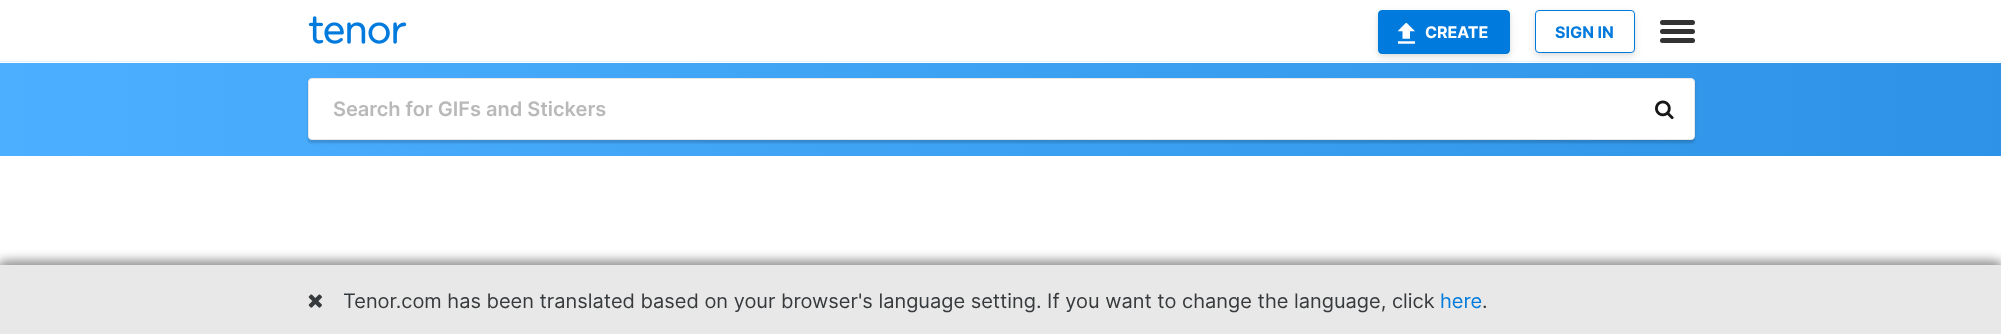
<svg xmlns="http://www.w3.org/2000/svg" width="2001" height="334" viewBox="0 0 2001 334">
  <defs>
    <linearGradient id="g1" gradientUnits="userSpaceOnUse" x1="0" y1="109" x2="2001" y2="109"><stop offset="0" stop-color="rgb(76,175,255)"/><stop offset="1" stop-color="rgb(46,147,230)"/></linearGradient>
  </defs>
  <rect width="100%" height="100%" fill="rgb(255,255,255)"/>
  <rect x="0" y="61" width="2001" height="1" fill="rgb(235,242,247)"/>
  <image x="308" y="16" width="99" height="28" href="pic1.png"/>
  <rect x="1378" y="15" width="132" height="44" rx="4" fill="rgba(83,83,92,0.11)" filter="blur(4px)"/>
  <rect x="1378" y="11" width="132" height="44" rx="4" fill="rgba(0,0,0,0.08)" filter="blur(2px)"/>
  <rect x="1378.5" y="10.5" width="131" height="43" rx="3.5" fill="rgb(0,122,221)" stroke="rgb(0,122,221)"/>
  <image x="1398" y="23" width="17" height="21" href="pic2.png"/>
  <text x="1425" y="38" font-family="Inter" font-size="16" font-weight="bold" fill="rgb(255,255,255)">CREATE</text>
  <rect x="1535" y="15" width="100" height="43" rx="4" fill="rgba(83,83,92,0.11)" filter="blur(4px)"/>
  <rect x="1535" y="11" width="100" height="43" rx="4" fill="rgba(0,0,0,0.08)" filter="blur(2px)"/>
  <rect x="1535.5" y="10.5" width="99" height="42" rx="3.5" fill="rgb(255,255,255)" stroke="rgb(0,122,221)"/>
  <text x="1555" y="38" font-family="Inter" font-size="16" font-weight="bold" fill="rgb(0,122,221)">SIGN IN</text>
  <rect x="1660" y="29" width="35" height="5" rx="2.5" fill="rgb(51,51,51)"/>
  <rect x="1660" y="20" width="35" height="5" rx="2.5" fill="rgb(51,51,51)"/>
  <rect x="1660" y="38" width="35" height="5" rx="2.5" fill="rgb(51,51,51)"/>
  <rect x="0" y="63" width="2001" height="93" fill="url(#g1)"/>
  <rect x="308" y="80" width="1387" height="63" rx="4" fill="rgba(0,0,0,0.16)" filter="blur(1px)"/>
  <rect x="308.5" y="78.5" width="1386" height="61" rx="3.5" fill="rgb(255,255,255)" stroke="rgb(232,232,232)"/>
  <text x="333" y="116" font-family="Inter" font-size="20" font-weight="600" fill="rgb(185,185,185)">Search for GIFs and Stickers</text>
  <image x="1655" y="100" width="19" height="20" href="pic3.png"/>
  <rect x="0" y="263" width="2001" height="70" fill="rgb(153,153,153)" filter="blur(6px)"/>
  <rect x="0" y="263" width="2001" height="70" fill="rgb(153,153,153)" filter="blur(6px)"/>
  <rect x="0" y="265" width="2001" height="69" fill="rgb(232,232,232)"/>
  <image x="308" y="294" width="14" height="14" href="pic4.png"/>
  <text x="343" y="308" font-family="Inter" font-size="20" fill="rgb(55,58,60)">Tenor.com has been translated based on your browser's language setting. If you want to change the language, click</text>
  <text x="1440" y="308" font-family="Inter" font-size="20" fill="rgb(0,122,221)">here</text>
  <text x="1482" y="308" font-family="Inter" font-size="20" fill="rgb(55,58,60)">.</text>
</svg>
